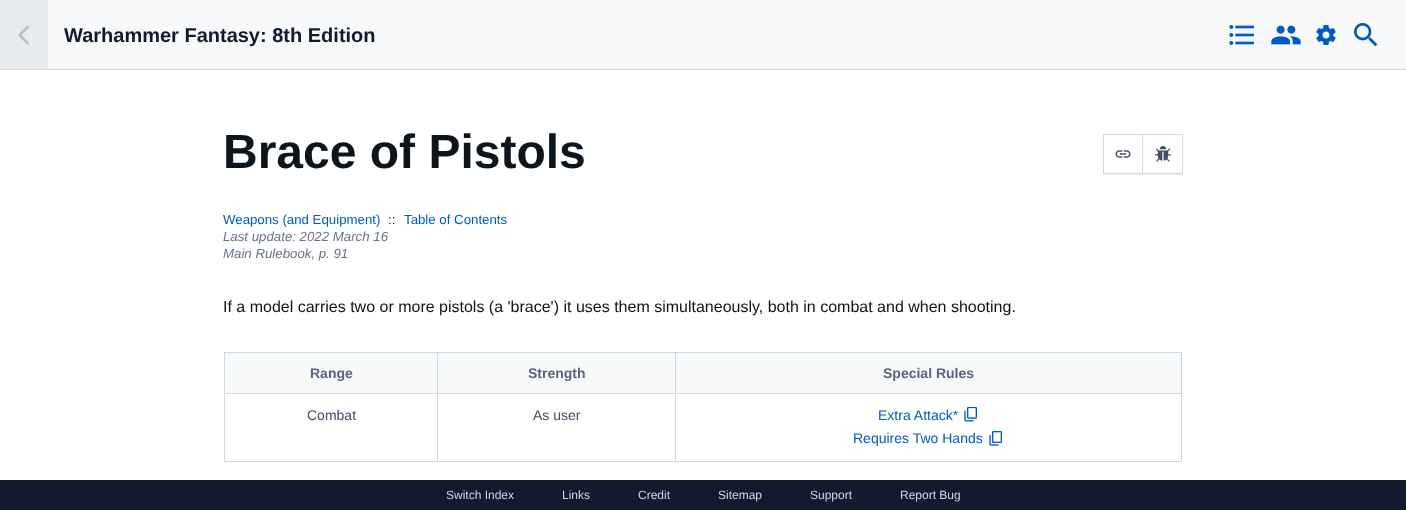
<svg xmlns="http://www.w3.org/2000/svg" width="1406" height="510" viewBox="0 0 1406 510">
  <rect width="100%" height="100%" fill="rgb(255,255,255)"/>
  <rect x="48" y="0" width="1358" height="69" fill="rgb(247,249,250)"/>
  <rect x="0" y="69" width="1406" height="1" fill="rgb(207,217,224)"/>
  <rect x="0" y="0" width="48" height="69" fill="rgb(231,235,238)"/>
  <image x="18" y="25" width="11" height="20" href="pic1.png"/>
  <text x="64" y="42" font-family="Liberation Sans" font-size="20" font-weight="bold" fill="rgb(17,27,43)">Warhammer Fantasy: 8th Edition</text>
  <image x="1229" y="25" width="25" height="20" href="pic2.png"/>
  <image x="1271" y="25" width="30" height="20" href="pic3.png"/>
  <image x="1316" y="25" width="20" height="20" href="pic4.png"/>
  <image x="1354" y="23" width="24" height="24" href="pic5.png"/>
  <text x="223" y="168" font-family="Liberation Sans" font-size="48" font-weight="bold" fill="rgb(12,20,28)">Brace of Pistols</text>
  <rect x="1103" y="174" width="80" height="1" fill="rgb(237,238,239)"/>
  <rect x="1103.5" y="134.5" width="39" height="39" fill="none" stroke="rgb(207,217,224)"/>
  <image x="1115" y="150" width="16" height="8" href="pic6.png"/>
  <rect x="1143" y="134" width="40" height="1" fill="rgb(207,217,224)"/>
  <rect x="1182" y="134" width="1" height="40" fill="rgb(207,217,224)"/>
  <rect x="1143" y="173" width="40" height="1" fill="rgb(207,217,224)"/>
  <image x="1155" y="146" width="16" height="16" href="pic7.png"/>
  <text x="223" y="224" font-family="Liberation Sans" font-size="13.25" fill="rgb(0,89,200)">Weapons (and Equipment)</text>
  <text x="388" y="224" font-family="Liberation Sans" font-size="13.25" fill="rgb(12,20,28)">::</text>
  <text x="404" y="224" font-family="Liberation Sans" font-size="13.25" fill="rgb(0,89,200)">Table of Contents</text>
  <g font-family="Liberation Sans" font-size="13.25" font-style="italic" fill="rgb(103,114,138)">
    <text>
      <tspan x="223" y="241">Last update: 2022 March 16</tspan>
      <tspan x="223" y="258">Main Rulebook, p. 91</tspan>
    </text>
  </g>
  <text x="223" y="312" font-family="Liberation Sans" font-size="16" fill="rgb(12,20,28)">If a model carries two or more pistols (a 'brace') it uses them simultaneously, both in combat and when shooting.</text>
  <rect x="225" y="353" width="956" height="40" fill="rgb(247,249,250)"/>
  <rect x="675" y="352" width="507" height="1" fill="rgb(207,217,224)"/>
  <rect x="675" y="393" width="507" height="1" fill="rgb(207,217,224)"/>
  <rect x="1181" y="393" width="1" height="69" fill="rgb(207,217,224)"/>
  <rect x="675" y="461" width="507" height="1" fill="rgb(207,217,224)"/>
  <rect x="675" y="393" width="1" height="69" fill="rgb(207,217,224)"/>
  <rect x="437" y="393" width="239" height="1" fill="rgb(207,217,224)"/>
  <rect x="675" y="352" width="1" height="42" fill="rgb(207,217,224)"/>
  <rect x="437" y="352" width="239" height="1" fill="rgb(207,217,224)"/>
  <rect x="437" y="461" width="239" height="1" fill="rgb(207,217,224)"/>
  <rect x="437" y="393" width="1" height="69" fill="rgb(207,217,224)"/>
  <rect x="224" y="393" width="214" height="1" fill="rgb(207,217,224)"/>
  <rect x="437" y="352" width="1" height="42" fill="rgb(207,217,224)"/>
  <rect x="224" y="352" width="214" height="1" fill="rgb(207,217,224)"/>
  <rect x="224" y="461" width="214" height="1" fill="rgb(207,217,224)"/>
  <rect x="224" y="393" width="1" height="69" fill="rgb(207,217,224)"/>
  <rect x="224" y="352" width="1" height="42" fill="rgb(207,217,224)"/>
  <g font-family="Liberation Sans" font-size="14" font-weight="bold" fill="rgb(90,101,124)">
    <text x="310" y="378">Range</text>
    <text x="528" y="378">Strength</text>
  </g>
  <rect x="1181" y="352" width="1" height="42" fill="rgb(207,217,224)"/>
  <text x="883" y="378" font-family="Liberation Sans" font-size="14" font-weight="bold" fill="rgb(90,101,124)">Special Rules</text>
  <g font-family="Liberation Sans" font-size="14" fill="rgb(65,77,99)">
    <text x="307" y="420">Combat</text>
    <text x="533" y="420">As user</text>
  </g>
  <text x="878" y="420" font-family="Liberation Sans" font-size="14" fill="rgb(0,89,200)">Extra Attack*</text>
  <image x="964" y="407" width="13" height="15" href="pic8.png"/>
  <text x="853" y="443" font-family="Liberation Sans" font-size="14" fill="rgb(0,89,200)">Requires Two Hands</text>
  <image x="989" y="431" width="13" height="15" href="pic9.png"/>
  <rect x="0" y="480" width="1406" height="30" fill="rgb(17,27,43)"/>
  <g font-family="Liberation Sans" font-size="12" fill="rgb(207,217,224)">
    <text x="446" y="499">Switch Index</text>
    <text x="562" y="499">Links</text>
    <text x="638" y="499">Credit</text>
    <text x="718" y="499">Sitemap</text>
    <text x="810" y="499">Support</text>
    <text x="900" y="499">Report Bug</text>
  </g>
</svg>
